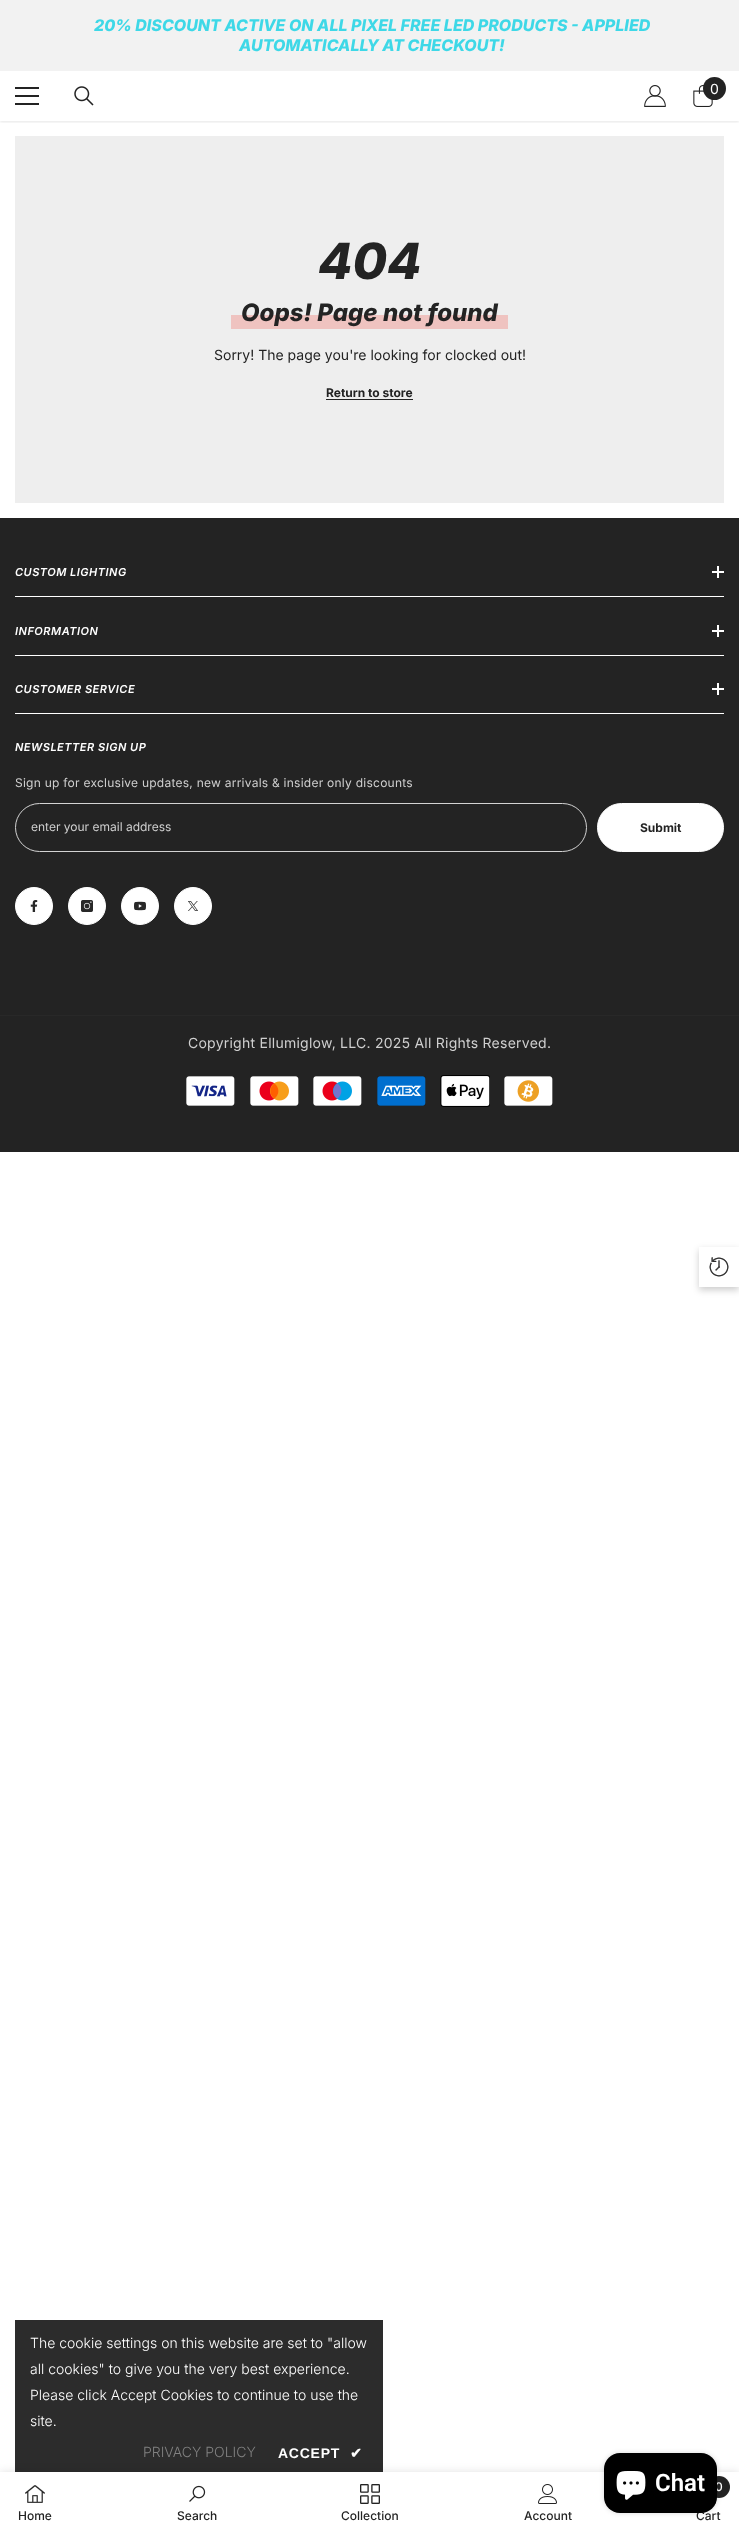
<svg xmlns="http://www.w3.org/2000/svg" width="739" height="2534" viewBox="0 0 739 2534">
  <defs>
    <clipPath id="clip1"><rect x="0" y="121" width="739" height="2"/></clipPath>
    <clipPath id="clip2"><path d="M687 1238H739V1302H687ZM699 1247H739V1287H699Z" clip-rule="evenodd"/></clipPath>
  </defs>
  <rect width="100%" height="100%" fill="rgb(255,255,255)"/>
  <rect x="0" y="0" width="739" height="71" fill="rgb(242,242,242)"/>
  <g font-family="Inter" font-size="16" font-weight="800" font-style="italic" fill="rgb(62,216,231)">
    <text x="94" y="31">20% DISCOUNT ACTIVE ON ALL PIXEL FREE LED PRODUCTS - APPLIED</text>
    <text x="239" y="51">AUTOMATICALLY AT CHECKOUT!</text>
  </g>
  <g clip-path="url(#clip1)">
    <rect x="0" y="72" width="739" height="50" fill="rgba(0,0,0,0.1)" filter="blur(1.5px)"/>
  </g>
  <rect x="15" y="95" width="24" height="2" fill="rgb(35,35,35)"/>
  <rect x="15" y="87" width="24" height="2" fill="rgb(35,35,35)"/>
  <rect x="15" y="103" width="24" height="2" fill="rgb(35,35,35)"/>
  <image x="74" y="86" width="20" height="20" href="pic1.png"/>
  <image x="644" y="85" width="22" height="22" href="pic2.png"/>
  <image x="693" y="85" width="20" height="22" href="pic3.png"/>
  <circle cx="714.5" cy="88.5" r="11.5" fill="rgb(35,35,35)"/>
  <text x="710" y="94" font-family="Inter" font-size="14" fill="rgb(255,255,255)">0</text>
  <rect x="15" y="136" width="709" height="367" fill="rgb(238,238,238)"/>
  <text x="318" y="279" font-family="Inter" font-size="50" font-weight="800" font-style="italic" fill="rgb(35,35,35)">404</text>
  <rect x="231" y="315" width="277" height="14" fill="rgb(239,195,192)"/>
  <text x="241" y="321" font-family="Inter" font-size="24" font-weight="800" font-style="italic" fill="rgb(35,35,35)">Oops! Page not found</text>
  <text x="214" y="360" font-family="Inter" font-size="14" fill="rgb(35,35,35)">Sorry! The page you're looking for clocked out!</text>
  <text x="326" y="397" font-family="Inter" font-size="12" font-weight="bold" fill="rgb(35,35,35)">Return to store</text>
  <rect x="326" y="399" width="87" height="1" fill="rgb(35,35,35)"/>
  <rect x="0" y="518" width="739" height="497" fill="rgb(35,35,35)"/>
  <rect x="15" y="596" width="709" height="1" fill="rgb(255,255,255)"/>
  <text x="15" y="576" font-family="Inter" font-size="11" font-weight="600" font-style="italic" letter-spacing="0.5" fill="rgb(255,255,255)">CUSTOM LIGHTING</text>
  <rect x="717" y="566" width="2" height="12" fill="rgb(255,255,255)"/>
  <rect x="712" y="571" width="12" height="2" fill="rgb(255,255,255)"/>
  <rect x="15" y="655" width="709" height="1" fill="rgb(255,255,255)"/>
  <text x="15" y="635" font-family="Inter" font-size="11" font-weight="600" font-style="italic" letter-spacing="0.5" fill="rgb(255,255,255)">INFORMATION</text>
  <rect x="717" y="625" width="2" height="12" fill="rgb(255,255,255)"/>
  <rect x="712" y="630" width="12" height="2" fill="rgb(255,255,255)"/>
  <rect x="15" y="713" width="709" height="1" fill="rgb(255,255,255)"/>
  <text x="15" y="693" font-family="Inter" font-size="11" font-weight="600" font-style="italic" letter-spacing="0.5" fill="rgb(255,255,255)">CUSTOMER SERVICE</text>
  <rect x="717" y="683" width="2" height="12" fill="rgb(255,255,255)"/>
  <rect x="712" y="688" width="12" height="2" fill="rgb(255,255,255)"/>
  <text x="15" y="751" font-family="Inter" font-size="11" font-weight="600" font-style="italic" letter-spacing="0.5" fill="rgb(255,255,255)">NEWSLETTER SIGN UP</text>
  <text x="15" y="787" font-family="Inter" font-size="12" letter-spacing="0.25" fill="rgb(207,207,207)">Sign up for exclusive updates, new arrivals &amp; insider only discounts</text>
  <rect x="15.5" y="803.5" width="571" height="48" rx="24" fill="none" stroke="rgb(211,211,211)"/>
  <text x="31" y="831" font-family="Inter" font-size="12" fill="rgb(207,207,207)">enter your email address</text>
  <rect x="597.5" y="803.5" width="126" height="48" rx="24" fill="rgb(255,255,255)" stroke="rgb(255,255,255)"/>
  <text x="640" y="832" font-family="Inter" font-size="12" font-weight="bold" fill="rgb(35,35,35)">Submit</text>
  <circle cx="34" cy="906" r="18.5" fill="rgb(255,255,255)" stroke="rgb(255,255,255)"/>
  <image x="30" y="900" width="8" height="12" href="pic4.png"/>
  <circle cx="87" cy="906" r="18.5" fill="rgb(255,255,255)" stroke="rgb(255,255,255)"/>
  <image x="81" y="900" width="12" height="12" href="pic5.png"/>
  <circle cx="140" cy="906" r="18.5" fill="rgb(255,255,255)" stroke="rgb(255,255,255)"/>
  <image x="134" y="901" width="12" height="10" href="pic6.png"/>
  <circle cx="193" cy="906" r="18.5" fill="rgb(255,255,255)" stroke="rgb(255,255,255)"/>
  <image x="188" y="901" width="10" height="10" href="pic7.png"/>
  <rect x="0" y="1016" width="739" height="136" fill="rgb(35,35,35)"/>
  <rect x="0" y="1015" width="739" height="1" fill="rgb(40,40,40)"/>
  <text x="188" y="1048" font-family="Inter" font-size="14" letter-spacing="0.25" fill="rgb(207,207,207)">Copyright Ellumiglow, LLC. 2025 All Rights Reserved.</text>
  <image x="186" y="1076" width="49" height="30" href="pic8.png"/>
  <image x="250" y="1076" width="49" height="30" href="pic9.png"/>
  <image x="313" y="1076" width="49" height="30" href="pic10.png"/>
  <image x="377" y="1076" width="49" height="30" href="pic11.png"/>
  <image x="440" y="1075" width="50" height="32" href="pic12.png"/>
  <image x="504" y="1076" width="49" height="30" href="pic13.png"/>
  <rect x="15" y="2320" width="368" height="152" fill="rgb(44,44,44)"/>
  <rect x="0" y="2472" width="739" height="62" fill="rgba(0,0,0,0.12)" filter="blur(4.5px)"/>
  <rect x="0" y="2472" width="739" height="62" fill="rgb(255,255,255)"/>
  <image x="25" y="2485" width="20" height="18" href="pic14.png"/>
  <text x="18" y="2520" font-family="Inter" font-size="12" font-weight="500" fill="rgb(35,35,35)">Home</text>
  <image x="189" y="2485" width="17" height="17" href="pic15.png"/>
  <text x="177" y="2520" font-family="Inter" font-size="12" font-weight="500" fill="rgb(35,35,35)">Search</text>
  <image x="360" y="2484" width="20" height="20" href="pic16.png"/>
  <text x="341" y="2520" font-family="Inter" font-size="12" font-weight="500" fill="rgb(35,35,35)">Collection</text>
  <image x="538" y="2484" width="19" height="20" href="pic17.png"/>
  <text x="524" y="2520" font-family="Inter" font-size="12" font-weight="500" fill="rgb(35,35,35)">Account</text>
  <circle cx="719" cy="2487" r="11" fill="rgb(35,35,35)"/>
  <text x="715" y="2491" font-family="Inter" font-size="12" font-weight="500" fill="rgb(255,255,255)">0</text>
  <image x="715" y="2502" width="1" height="2" href="pic18.png"/>
  <text x="696" y="2520" font-family="Inter" font-size="12" font-weight="500" fill="rgb(35,35,35)">Cart</text>
  <g clip-path="url(#clip2)">
    <rect x="699" y="1250" width="40" height="40" fill="rgba(0,0,0,0.2)" filter="blur(3.5px)"/>
  </g>
  <image x="709" y="1257" width="20" height="20" href="pic19.png"/>
  <g font-family="Inter" font-size="14" font-weight="300" fill="rgb(255,255,255)">
    <text>
      <tspan x="30" y="2348">The cookie settings on this website are set to "allow</tspan>
      <tspan x="30" y="2374">all cookies" to give you the very best experience.</tspan>
      <tspan x="30" y="2400">Please click Accept Cookies to continue to use the</tspan>
      <tspan x="30" y="2426">site.</tspan>
    </text>
  </g>
  <text x="143" y="2457" font-family="Inter" font-size="14" font-weight="300" fill="rgb(129,129,129)">PRIVACY POLICY</text>
  <text x="278" y="2458" font-family="Liberation Sans" font-size="14" font-weight="bold" letter-spacing="0.75" fill="rgb(255,255,255)">ACCEPT</text>
  <text x="350" y="2458" font-family="DejaVu Sans" font-size="14" font-weight="bold" letter-spacing="0.75" fill="rgb(255,255,255)">✔</text>
  <rect x="604" y="2453" width="113" height="60" rx="16" fill="rgba(0,0,0,0.15)" filter="blur(2.5px)"/>
  <rect x="604" y="2453" width="113" height="60" rx="16" fill="rgb(0,0,0)"/>
  <image x="616" y="2471" width="30" height="29" href="pic20.png"/>
  <text x="655" y="2491" font-family="Roboto" font-size="24" font-weight="600" fill="rgb(255,255,255)">Chat</text>
</svg>
